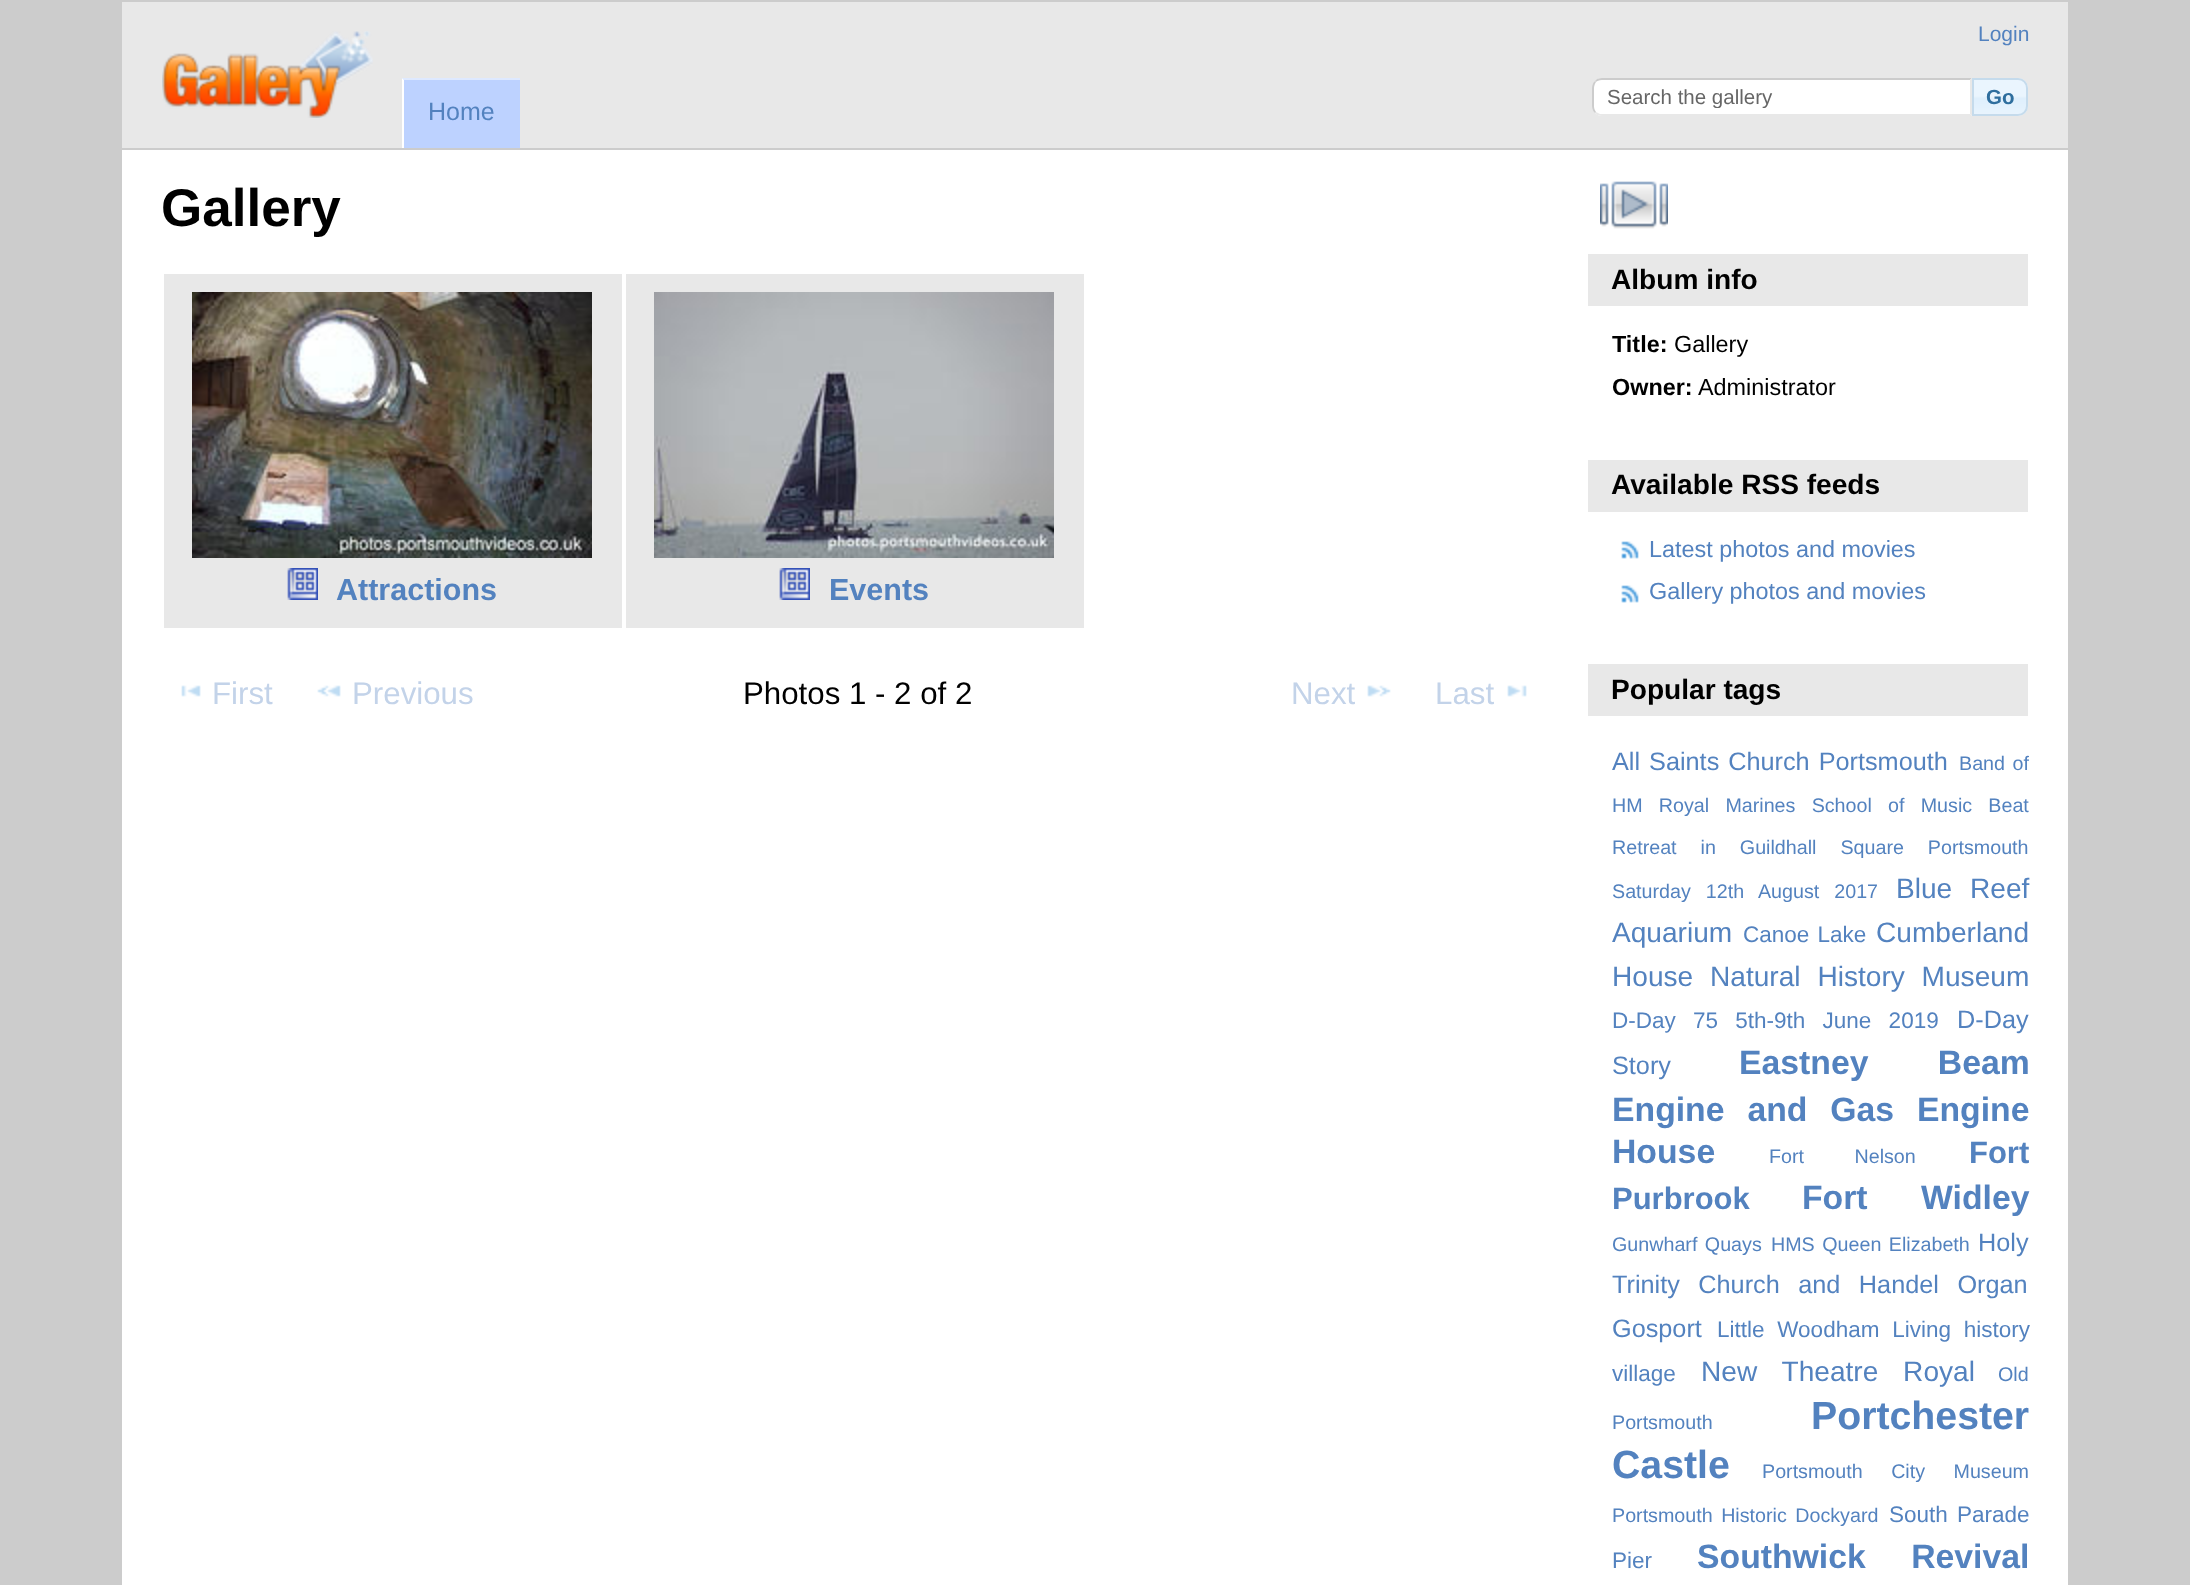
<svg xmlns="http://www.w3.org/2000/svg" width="2190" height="1585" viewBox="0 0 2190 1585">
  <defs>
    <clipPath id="clip1"><rect x="1608" y="86" width="350" height="22"/></clipPath>
  </defs>
  <rect width="100%" height="100%" fill="rgb(204,204,204)"/>
  <rect x="122" y="150" width="1946" height="1435" fill="rgb(255,255,255)"/>
  <rect x="122" y="2" width="1946" height="146" fill="rgb(232,232,232)"/>
  <image x="162" y="31" width="211" height="87" href="pic1.png"/>
  <text x="1978" y="41" font-family="Liberation Sans" font-size="21" fill="rgb(83,130,191)">Login</text>
  <path d="M1602 78H1972V116H1602C1596.5 116 1592 111.5 1592 106V88C1592 82.5 1596.5 78 1602 78Z" fill="rgb(255,255,255)"/>
  <path d="M1602 78C1599 78 1596 79 1595 81L1596 82C1597 81 1599 80 1602 80H1970L1972 78Z" fill="rgb(204,204,204)"/>
  <path d="M1972 78L1970 80V114L1972 116Z" fill="rgb(232,232,232)"/>
  <path d="M1972 116L1970 114H1600L1596 112L1595 113C1596 115 1599 116 1602 116Z" fill="rgb(232,232,232)"/>
  <path d="M1592 88V106C1592 109 1593 111.5 1595 113L1596 112C1595 110.5 1594 108.5 1594 106.5V88C1594 86 1595 83.5 1596 82L1595 81C1593 82.5 1592 85 1592 88Z" fill="rgb(204,204,204)"/>
  <g clip-path="url(#clip1)">
    <text x="1607" y="104" font-family="Liberation Sans" font-size="20.5" fill="rgb(102,102,102)">Search the gallery</text>
  </g>
  <image x="1974" y="78" width="54" height="38" href="pic2.png"/>
  <path d="M1973 79H2018C2023 79 2027 83 2027 88V106C2027 111 2023 115 2018 115H1973Z" fill="none" stroke="rgb(197,219,236)" stroke-width="2"/>
  <text x="1986" y="104" font-family="Liberation Sans" font-size="20.5" font-weight="bold" fill="rgb(46,110,158)">Go</text>
  <rect x="402" y="78" width="118" height="70" fill="rgb(189,210,255)"/>
  <path d="M402 78H520V80H404Z" fill="rgb(222,233,255)"/>
  <path d="M402 148V78L404 80V148Z" fill="rgb(255,255,255)"/>
  <text x="428" y="120" font-family="Liberation Sans" font-size="25" fill="rgb(83,130,191)">Home</text>
  <text x="161" y="226" font-family="Liberation Sans" font-size="53" font-weight="bold" fill="rgb(0,0,0)">Gallery</text>
  <rect x="164" y="274" width="458" height="354" fill="rgb(232,232,232)"/>
  <image x="192" y="292" width="400" height="266" href="pic3.png"/>
  <image x="287" y="568" width="31" height="32" href="pic4.png"/>
  <text x="336" y="600" font-family="Liberation Sans" font-size="30.5" font-weight="bold" fill="rgb(83,130,191)">Attractions</text>
  <rect x="626" y="274" width="458" height="354" fill="rgb(232,232,232)"/>
  <image x="654" y="292" width="400" height="266" href="pic5.png"/>
  <image x="779" y="568" width="31" height="32" href="pic4.png"/>
  <text x="829" y="600" font-family="Liberation Sans" font-size="30.5" font-weight="bold" fill="rgb(83,130,191)">Events</text>
  <image x="181" y="685" width="20" height="12" href="pic6.png"/>
  <text x="212" y="704" font-family="Liberation Sans" font-size="31.25" fill="rgb(195,211,233)">First</text>
  <image x="317" y="685" width="24" height="12" href="pic7.png"/>
  <text x="352" y="704" font-family="Liberation Sans" font-size="31.25" fill="rgb(195,211,233)">Previous</text>
  <text x="743" y="704" font-family="Liberation Sans" font-size="31.25" fill="rgb(0,0,0)">Photos 1 - 2 of 2</text>
  <text x="1291" y="704" font-family="Liberation Sans" font-size="31.25" fill="rgb(195,211,233)">Next</text>
  <image x="1367" y="685" width="24" height="12" href="pic8.png"/>
  <text x="1435" y="704" font-family="Liberation Sans" font-size="31.25" fill="rgb(195,211,233)">Last</text>
  <image x="1507" y="685" width="20" height="12" href="pic9.png"/>
  <image x="1600" y="181" width="68" height="48" href="pic10.png"/>
  <rect x="1588" y="254" width="440" height="52" fill="rgb(232,232,232)"/>
  <text x="1611" y="289" font-family="Liberation Sans" font-size="28.1" font-weight="bold" fill="rgb(0,0,0)">Album info</text>
  <text x="1612" y="352" font-family="Liberation Sans" font-size="23.4" font-weight="bold" fill="rgb(0,0,0)">Title:</text>
  <text x="1674" y="352" font-family="Liberation Sans" font-size="23.4" fill="rgb(0,0,0)">Gallery</text>
  <text x="1612" y="395" font-family="Liberation Sans" font-size="23.4" font-weight="bold" fill="rgb(0,0,0)">Owner:</text>
  <text x="1698" y="395" font-family="Liberation Sans" font-size="23.4" fill="rgb(0,0,0)">Administrator</text>
  <rect x="1588" y="460" width="440" height="52" fill="rgb(232,232,232)"/>
  <text x="1611" y="494" font-family="Liberation Sans" font-size="28.1" font-weight="bold" fill="rgb(0,0,0)">Available RSS feeds</text>
  <image x="1621" y="541" width="18" height="18" href="pic11.png"/>
  <text x="1649" y="557" font-family="Liberation Sans" font-size="23.4" fill="rgb(83,130,191)">Latest photos and movies</text>
  <image x="1621" y="585" width="18" height="18" href="pic11.png"/>
  <text x="1649" y="599" font-family="Liberation Sans" font-size="23.4" fill="rgb(83,130,191)">Gallery photos and movies</text>
  <rect x="1588" y="664" width="440" height="52" fill="rgb(232,232,232)"/>
  <text x="1611" y="699" font-family="Liberation Sans" font-size="28.1" font-weight="bold" fill="rgb(0,0,0)">Popular tags</text>
  <text x="1612" y="770" word-spacing="2" font-family="Liberation Sans" font-size="25.25" fill="rgb(83,130,191)">All Saints Church Portsmouth</text>
  <g font-family="Liberation Sans" font-size="19.7" fill="rgb(83,130,191)">
    <text x="1959" y="770" word-spacing="2">Band of</text>
    <text x="1612" y="812" word-spacing="10.75">HM Royal Marines School of Music Beat</text>
    <text x="1612" y="854" word-spacing="18.5">Retreat in Guildhall Square Portsmouth</text>
    <text x="1612" y="898" word-spacing="9.5">Saturday 12th August 2017</text>
  </g>
  <g font-family="Liberation Sans" font-size="28.1" fill="rgb(83,130,191)">
    <text x="1896" y="898" word-spacing="10">Blue Reef</text>
    <text x="1612" y="942">Aquarium</text>
  </g>
  <text x="1743" y="942" word-spacing="2" font-family="Liberation Sans" font-size="22.5" fill="rgb(83,130,191)">Canoe Lake</text>
  <g font-family="Liberation Sans" font-size="28.1" fill="rgb(83,130,191)">
    <text x="1876" y="942">Cumberland</text>
    <text x="1612" y="986" word-spacing="9">House Natural History Museum</text>
  </g>
  <text x="1612" y="1028" word-spacing="11" font-family="Liberation Sans" font-size="22.5" fill="rgb(83,130,191)">D-Day 75 5th-9th June 2019</text>
  <g font-family="Liberation Sans" font-size="25.25" fill="rgb(83,130,191)">
    <text x="1957" y="1028">D-Day</text>
    <text x="1612" y="1074">Story</text>
  </g>
  <g font-family="Liberation Sans" font-size="33.75" font-weight="bold" fill="rgb(83,130,191)">
    <text x="1739" y="1074" word-spacing="60">Eastney Beam</text>
    <text>
      <tspan x="1612" y="1121" word-spacing="13.5">Engine and Gas Engine</tspan>
      <tspan x="1612" y="1163">House</tspan>
    </text>
  </g>
  <text x="1769" y="1163" word-spacing="45" font-family="Liberation Sans" font-size="19.7" fill="rgb(83,130,191)">Fort Nelson</text>
  <g font-family="Liberation Sans" font-size="31" font-weight="bold" fill="rgb(83,130,191)">
    <text x="1969" y="1163">Fort</text>
    <text x="1612" y="1209">Purbrook</text>
  </g>
  <text x="1802" y="1209" word-spacing="44" font-family="Liberation Sans" font-size="33.75" font-weight="bold" fill="rgb(83,130,191)">Fort Widley</text>
  <g font-family="Liberation Sans" font-size="19.7" fill="rgb(83,130,191)">
    <text x="1612" y="1251" word-spacing="2">Gunwharf Quays</text>
    <text x="1771" y="1251" word-spacing="2">HMS Queen Elizabeth</text>
  </g>
  <g font-family="Liberation Sans" font-size="25.25" fill="rgb(83,130,191)">
    <text x="1978" y="1251">Holy</text>
    <text>
      <tspan x="1612" y="1293" word-spacing="11.5">Trinity Church and Handel Organ</tspan>
      <tspan x="1612" y="1337">Gosport</tspan>
    </text>
  </g>
  <g font-family="Liberation Sans" font-size="22.5" fill="rgb(83,130,191)">
    <text x="1717" y="1337" word-spacing="6.5">Little Woodham Living history</text>
    <text x="1612" y="1381">village</text>
  </g>
  <text x="1701" y="1381" word-spacing="17" font-family="Liberation Sans" font-size="28.1" fill="rgb(83,130,191)">New Theatre Royal</text>
  <g font-family="Liberation Sans" font-size="19.7" fill="rgb(83,130,191)">
    <text x="1998" y="1381">Old</text>
    <text x="1612" y="1429">Portsmouth</text>
  </g>
  <g font-family="Liberation Sans" font-size="39.25" font-weight="bold" fill="rgb(83,130,191)">
    <text x="1811" y="1429">Portchester</text>
    <text x="1612" y="1478">Castle</text>
  </g>
  <g font-family="Liberation Sans" font-size="19.7" fill="rgb(83,130,191)">
    <text x="1762" y="1478" word-spacing="23">Portsmouth City Museum</text>
    <text x="1612" y="1522" word-spacing="3">Portsmouth Historic Dockyard</text>
  </g>
  <g font-family="Liberation Sans" font-size="22.5" fill="rgb(83,130,191)">
    <text x="1889" y="1522" word-spacing="3">South Parade</text>
    <text x="1612" y="1568">Pier</text>
  </g>
  <text x="1697" y="1568" word-spacing="36" font-family="Liberation Sans" font-size="33.75" font-weight="bold" fill="rgb(83,130,191)">Southwick Revival</text>
</svg>
